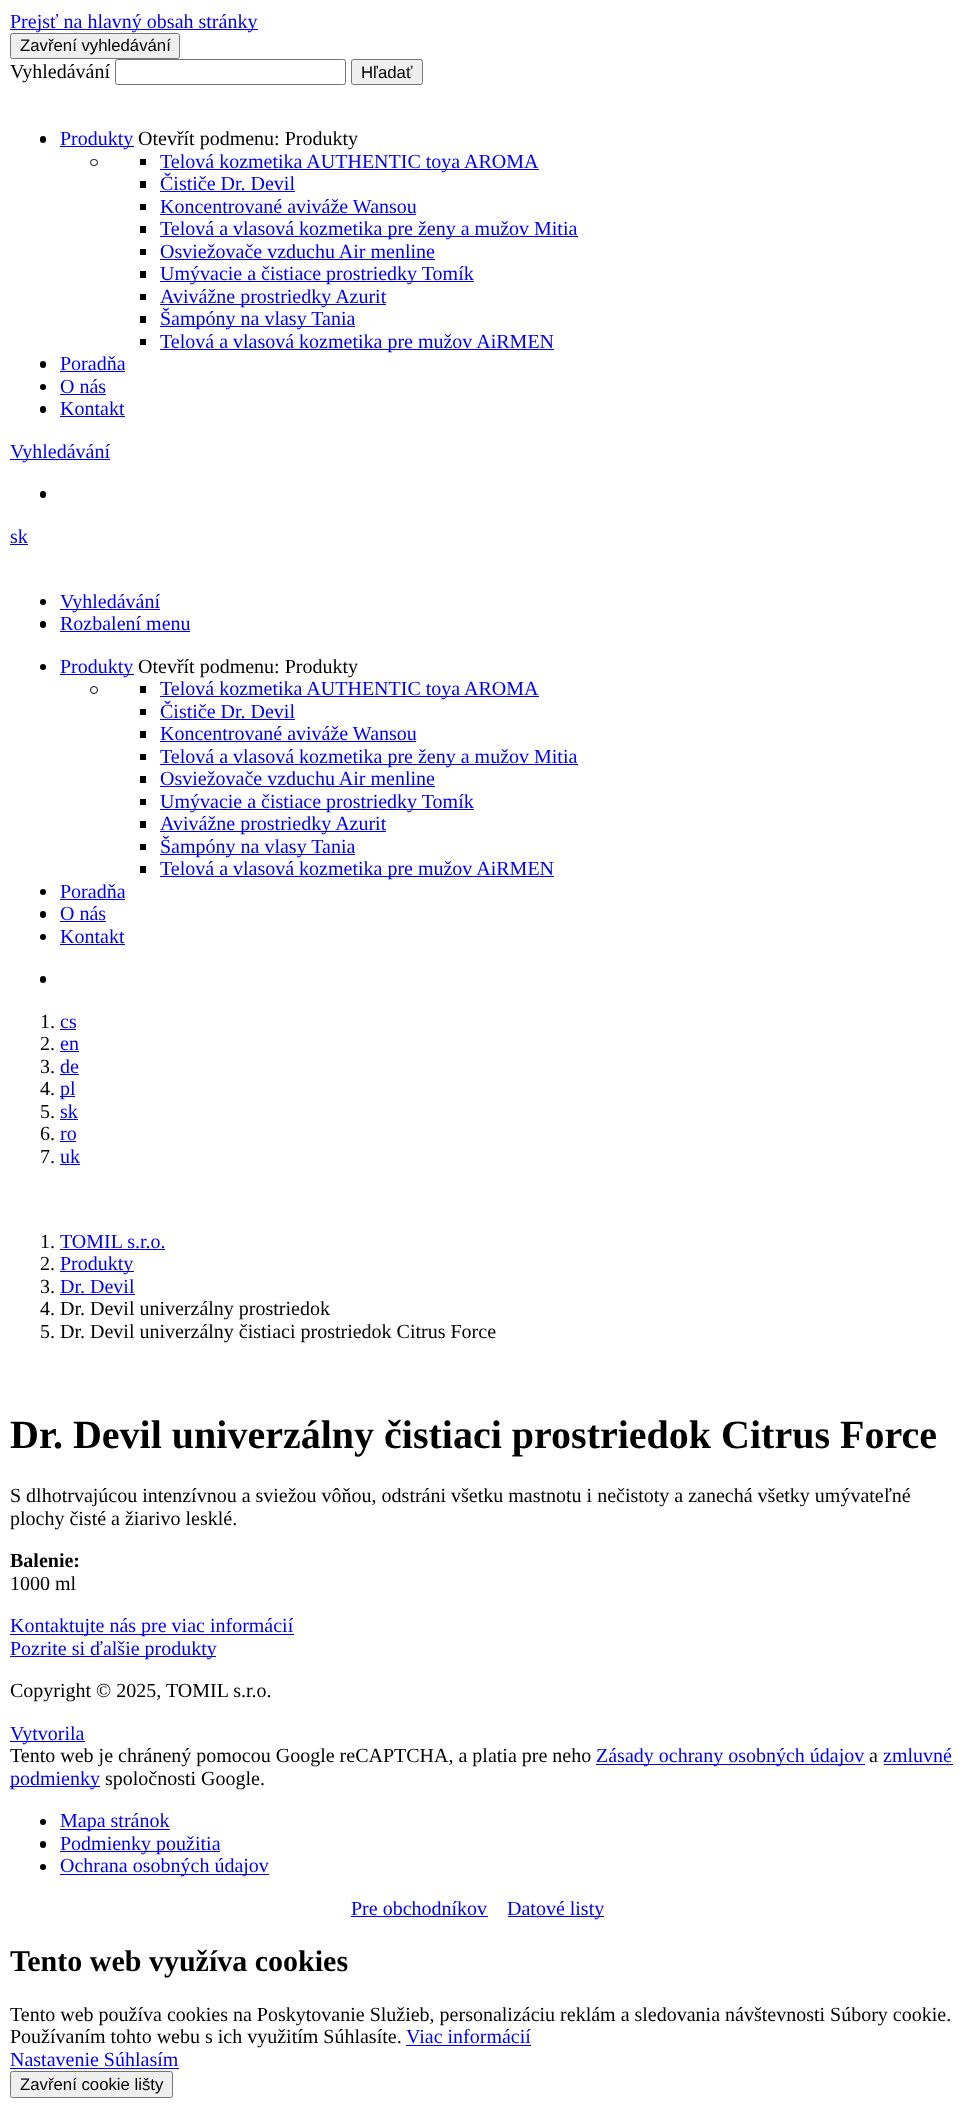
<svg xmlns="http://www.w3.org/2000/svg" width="969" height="2112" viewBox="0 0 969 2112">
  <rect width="100%" height="100%" fill="rgb(255,255,255)"/>
  <rect x="10" y="29" width="248" height="1" fill="rgb(0,0,238)"/>
  <text x="10" y="28" font-family="Liberation Serif" font-size="20" fill="rgb(0,0,238)">Prejsť na hlavný obsah stránky</text>
  <rect x="10.5" y="33.5" width="169" height="25" rx="2" fill="rgb(239,239,239)" stroke="rgb(118,118,118)"/>
  <text x="20" y="51" font-family="Liberation Sans" font-size="16.75" fill="rgb(0,0,0)">Zavření vyhledávání</text>
  <text x="10" y="78" font-family="Liberation Serif" font-size="20" fill="rgb(0,0,0)">Vyhledávání</text>
  <rect x="115.5" y="59.5" width="230" height="25" rx="2" fill="none" stroke="rgb(118,118,118)"/>
  <rect x="351.5" y="59.5" width="71" height="25" rx="2" fill="rgb(239,239,239)" stroke="rgb(118,118,118)"/>
  <text x="361" y="78" font-family="Liberation Sans" font-size="16.75" fill="rgb(0,0,0)">Hľadať</text>
  <rect x="40" y="136" width="6" height="7" rx="3" fill="rgb(0,0,0)"/>
  <rect x="60" y="146" width="74" height="1" fill="rgb(0,0,238)"/>
  <text x="60" y="145" font-family="Liberation Serif" font-size="20" fill="rgb(0,0,238)">Produkty</text>
  <text x="138" y="145" font-family="Liberation Serif" font-size="20" fill="rgb(0,0,0)">Otevřít podmenu: Produkty</text>
  <rect x="90.5" y="159.5" width="7" height="6" rx="3" fill="none" stroke="rgb(0,0,0)"/>
  <rect x="140" y="159" width="6" height="6" fill="rgb(0,0,0)"/>
  <rect x="160" y="169" width="379" height="1" fill="rgb(0,0,238)"/>
  <text x="160" y="168" font-family="Liberation Serif" font-size="20" fill="rgb(0,0,238)">Telová kozmetika AUTHENTIC toya AROMA</text>
  <rect x="140" y="181" width="6" height="7" fill="rgb(0,0,0)"/>
  <text x="160" y="190" font-family="Liberation Serif" font-size="20" fill="rgb(0,0,238)">Čističe Dr. Devil</text>
  <rect x="160" y="191" width="135" height="1" fill="rgb(0,0,238)"/>
  <rect x="140" y="204" width="6" height="6" fill="rgb(0,0,0)"/>
  <text x="160" y="213" font-family="Liberation Serif" font-size="20" fill="rgb(0,0,238)">Koncentrované aviváže Wansou</text>
  <rect x="160" y="214" width="256" height="1" fill="rgb(0,0,238)"/>
  <rect x="140" y="226" width="6" height="7" fill="rgb(0,0,0)"/>
  <rect x="160" y="236" width="418" height="1" fill="rgb(0,0,238)"/>
  <text x="160" y="235" font-family="Liberation Serif" font-size="20" fill="rgb(0,0,238)">Telová a vlasová kozmetika pre ženy a mužov Mitia</text>
  <rect x="140" y="249" width="6" height="6" fill="rgb(0,0,0)"/>
  <text x="160" y="258" font-family="Liberation Serif" font-size="20" fill="rgb(0,0,238)">Osviežovače vzduchu Air menline</text>
  <rect x="160" y="259" width="275" height="1" fill="rgb(0,0,238)"/>
  <rect x="140" y="271" width="6" height="7" fill="rgb(0,0,0)"/>
  <rect x="160" y="281" width="314" height="1" fill="rgb(0,0,238)"/>
  <text x="160" y="280" font-family="Liberation Serif" font-size="20" fill="rgb(0,0,238)">Umývacie a čistiace prostriedky Tomík</text>
  <rect x="140" y="294" width="6" height="6" fill="rgb(0,0,0)"/>
  <rect x="160" y="304" width="226" height="1" fill="rgb(0,0,238)"/>
  <text x="160" y="303" font-family="Liberation Serif" font-size="20" fill="rgb(0,0,238)">Avivážne prostriedky Azurit</text>
  <rect x="140" y="316" width="6" height="7" fill="rgb(0,0,0)"/>
  <rect x="160" y="326" width="195" height="1" fill="rgb(0,0,238)"/>
  <text x="160" y="325" font-family="Liberation Serif" font-size="20" fill="rgb(0,0,238)">Šampóny na vlasy Tania</text>
  <rect x="140" y="339" width="6" height="6" fill="rgb(0,0,0)"/>
  <rect x="160" y="349" width="394" height="1" fill="rgb(0,0,238)"/>
  <text x="160" y="348" font-family="Liberation Serif" font-size="20" fill="rgb(0,0,238)">Telová a vlasová kozmetika pre mužov AiRMEN</text>
  <rect x="40" y="361" width="6" height="7" rx="3" fill="rgb(0,0,0)"/>
  <text x="60" y="370" font-family="Liberation Serif" font-size="20" fill="rgb(0,0,238)">Poradňa</text>
  <rect x="60" y="371" width="65" height="1" fill="rgb(0,0,238)"/>
  <circle cx="43" cy="387" r="3" fill="rgb(0,0,0)"/>
  <text x="60" y="393" font-family="Liberation Serif" font-size="20" fill="rgb(0,0,238)">O nás</text>
  <rect x="60" y="394" width="46" height="1" fill="rgb(0,0,238)"/>
  <rect x="40" y="406" width="6" height="7" rx="3" fill="rgb(0,0,0)"/>
  <text x="60" y="415" font-family="Liberation Serif" font-size="20" fill="rgb(0,0,238)">Kontakt</text>
  <rect x="60" y="416" width="65" height="1" fill="rgb(0,0,238)"/>
  <rect x="10" y="459" width="100" height="1" fill="rgb(0,0,238)"/>
  <text x="10" y="458" font-family="Liberation Serif" font-size="20" fill="rgb(0,0,238)">Vyhledávání</text>
  <rect x="40" y="491" width="6" height="7" rx="3" fill="rgb(0,0,0)"/>
  <text x="10" y="543" font-family="Liberation Serif" font-size="20" fill="rgb(0,0,238)">sk</text>
  <rect x="10" y="544" width="18" height="1" fill="rgb(0,0,238)"/>
  <circle cx="43" cy="602" r="3" fill="rgb(0,0,0)"/>
  <rect x="60" y="609" width="100" height="1" fill="rgb(0,0,238)"/>
  <text x="60" y="608" font-family="Liberation Serif" font-size="20" fill="rgb(0,0,238)">Vyhledávání</text>
  <rect x="40" y="621" width="6" height="7" rx="3" fill="rgb(0,0,0)"/>
  <text x="60" y="630" font-family="Liberation Serif" font-size="20" fill="rgb(0,0,238)">Rozbalení menu</text>
  <rect x="60" y="631" width="130" height="1" fill="rgb(0,0,238)"/>
  <circle cx="43" cy="667" r="3" fill="rgb(0,0,0)"/>
  <rect x="60" y="674" width="74" height="1" fill="rgb(0,0,238)"/>
  <text x="60" y="673" font-family="Liberation Serif" font-size="20" fill="rgb(0,0,238)">Produkty</text>
  <text x="138" y="673" font-family="Liberation Serif" font-size="20" fill="rgb(0,0,0)">Otevřít podmenu: Produkty</text>
  <circle cx="94" cy="690" r="3.5" fill="none" stroke="rgb(0,0,0)"/>
  <rect x="140" y="686" width="6" height="7" fill="rgb(0,0,0)"/>
  <rect x="160" y="696" width="379" height="1" fill="rgb(0,0,238)"/>
  <text x="160" y="695" font-family="Liberation Serif" font-size="20" fill="rgb(0,0,238)">Telová kozmetika AUTHENTIC toya AROMA</text>
  <rect x="140" y="709" width="6" height="6" fill="rgb(0,0,0)"/>
  <text x="160" y="718" font-family="Liberation Serif" font-size="20" fill="rgb(0,0,238)">Čističe Dr. Devil</text>
  <rect x="160" y="719" width="135" height="1" fill="rgb(0,0,238)"/>
  <rect x="140" y="731" width="6" height="7" fill="rgb(0,0,0)"/>
  <text x="160" y="740" font-family="Liberation Serif" font-size="20" fill="rgb(0,0,238)">Koncentrované aviváže Wansou</text>
  <rect x="160" y="741" width="256" height="1" fill="rgb(0,0,238)"/>
  <rect x="140" y="754" width="6" height="6" fill="rgb(0,0,0)"/>
  <rect x="160" y="764" width="418" height="1" fill="rgb(0,0,238)"/>
  <text x="160" y="763" font-family="Liberation Serif" font-size="20" fill="rgb(0,0,238)">Telová a vlasová kozmetika pre ženy a mužov Mitia</text>
  <rect x="140" y="776" width="6" height="7" fill="rgb(0,0,0)"/>
  <text x="160" y="785" font-family="Liberation Serif" font-size="20" fill="rgb(0,0,238)">Osviežovače vzduchu Air menline</text>
  <rect x="160" y="786" width="275" height="1" fill="rgb(0,0,238)"/>
  <rect x="140" y="799" width="6" height="6" fill="rgb(0,0,0)"/>
  <rect x="160" y="809" width="314" height="1" fill="rgb(0,0,238)"/>
  <text x="160" y="808" font-family="Liberation Serif" font-size="20" fill="rgb(0,0,238)">Umývacie a čistiace prostriedky Tomík</text>
  <rect x="140" y="821" width="6" height="7" fill="rgb(0,0,0)"/>
  <rect x="160" y="831" width="226" height="1" fill="rgb(0,0,238)"/>
  <text x="160" y="830" font-family="Liberation Serif" font-size="20" fill="rgb(0,0,238)">Avivážne prostriedky Azurit</text>
  <rect x="140" y="844" width="6" height="6" fill="rgb(0,0,0)"/>
  <rect x="160" y="854" width="195" height="1" fill="rgb(0,0,238)"/>
  <text x="160" y="853" font-family="Liberation Serif" font-size="20" fill="rgb(0,0,238)">Šampóny na vlasy Tania</text>
  <rect x="140" y="866" width="6" height="7" fill="rgb(0,0,0)"/>
  <rect x="160" y="876" width="394" height="1" fill="rgb(0,0,238)"/>
  <text x="160" y="875" font-family="Liberation Serif" font-size="20" fill="rgb(0,0,238)">Telová a vlasová kozmetika pre mužov AiRMEN</text>
  <circle cx="43" cy="892" r="3" fill="rgb(0,0,0)"/>
  <text x="60" y="898" font-family="Liberation Serif" font-size="20" fill="rgb(0,0,238)">Poradňa</text>
  <rect x="60" y="899" width="65" height="1" fill="rgb(0,0,238)"/>
  <rect x="40" y="911" width="6" height="7" rx="3" fill="rgb(0,0,0)"/>
  <text x="60" y="920" font-family="Liberation Serif" font-size="20" fill="rgb(0,0,238)">O nás</text>
  <rect x="60" y="921" width="46" height="1" fill="rgb(0,0,238)"/>
  <circle cx="43" cy="937" r="3" fill="rgb(0,0,0)"/>
  <text x="60" y="943" font-family="Liberation Serif" font-size="20" fill="rgb(0,0,238)">Kontakt</text>
  <rect x="60" y="944" width="65" height="1" fill="rgb(0,0,238)"/>
  <rect x="40" y="976" width="6" height="7" rx="3" fill="rgb(0,0,0)"/>
  <text x="40" y="1028" font-family="Liberation Serif" font-size="20" fill="rgb(0,0,0)">1.</text>
  <text x="60" y="1028" font-family="Liberation Serif" font-size="20" fill="rgb(0,0,238)">cs</text>
  <rect x="60" y="1029" width="16" height="1" fill="rgb(0,0,238)"/>
  <text x="40" y="1050" font-family="Liberation Serif" font-size="20" fill="rgb(0,0,0)">2.</text>
  <text x="60" y="1050" font-family="Liberation Serif" font-size="20" fill="rgb(0,0,238)">en</text>
  <rect x="60" y="1051" width="19" height="1" fill="rgb(0,0,238)"/>
  <text x="40" y="1073" font-family="Liberation Serif" font-size="20" fill="rgb(0,0,0)">3.</text>
  <text x="60" y="1073" font-family="Liberation Serif" font-size="20" fill="rgb(0,0,238)">de</text>
  <rect x="60" y="1074" width="19" height="1" fill="rgb(0,0,238)"/>
  <text x="40" y="1095" font-family="Liberation Serif" font-size="20" fill="rgb(0,0,0)">4.</text>
  <rect x="60" y="1096" width="15" height="1" fill="rgb(0,0,238)"/>
  <text x="60" y="1095" font-family="Liberation Serif" font-size="20" fill="rgb(0,0,238)">pl</text>
  <text x="40" y="1118" font-family="Liberation Serif" font-size="20" fill="rgb(0,0,0)">5.</text>
  <text x="60" y="1118" font-family="Liberation Serif" font-size="20" fill="rgb(0,0,238)">sk</text>
  <rect x="60" y="1119" width="18" height="1" fill="rgb(0,0,238)"/>
  <text x="40" y="1140" font-family="Liberation Serif" font-size="20" fill="rgb(0,0,0)">6.</text>
  <text x="60" y="1140" font-family="Liberation Serif" font-size="20" fill="rgb(0,0,238)">ro</text>
  <rect x="60" y="1141" width="16" height="1" fill="rgb(0,0,238)"/>
  <text x="40" y="1163" font-family="Liberation Serif" font-size="20" fill="rgb(0,0,0)">7.</text>
  <text x="60" y="1163" font-family="Liberation Serif" font-size="20" fill="rgb(0,0,238)">uk</text>
  <rect x="60" y="1164" width="20" height="1" fill="rgb(0,0,238)"/>
  <text x="40" y="1248" font-family="Liberation Serif" font-size="20" fill="rgb(0,0,0)">1.</text>
  <text x="60" y="1248" font-family="Liberation Serif" font-size="20" fill="rgb(0,0,238)">TOMIL s.r.o.</text>
  <rect x="60" y="1249" width="105" height="1" fill="rgb(0,0,238)"/>
  <text x="40" y="1270" font-family="Liberation Serif" font-size="20" fill="rgb(0,0,0)">2.</text>
  <rect x="60" y="1271" width="74" height="1" fill="rgb(0,0,238)"/>
  <text x="60" y="1270" font-family="Liberation Serif" font-size="20" fill="rgb(0,0,238)">Produkty</text>
  <text x="40" y="1293" font-family="Liberation Serif" font-size="20" fill="rgb(0,0,0)">3.</text>
  <text x="60" y="1293" font-family="Liberation Serif" font-size="20" fill="rgb(0,0,238)">Dr. Devil</text>
  <rect x="60" y="1294" width="75" height="1" fill="rgb(0,0,238)"/>
  <g font-family="Liberation Serif" font-size="20" fill="rgb(0,0,0)">
    <text>
      <tspan x="40" y="1315">4. Dr. Devil univerzálny prostriedok</tspan>
      <tspan x="40" y="1338">5. Dr. Devil univerzálny čistiaci prostriedok Citrus Force</tspan>
    </text>
  </g>
  <text x="10" y="1448" font-family="Liberation Serif" font-size="40" font-weight="bold" fill="rgb(0,0,0)">Dr. Devil univerzálny čistiaci prostriedok Citrus Force</text>
  <g font-family="Liberation Serif" font-size="20" fill="rgb(0,0,0)">
    <text>
      <tspan x="10" y="1502">S dlhotrvajúcou intenzívnou a sviežou vôňou, odstráni všetku mastnotu i nečistoty a zanechá všetky umývateľné</tspan>
      <tspan x="10" y="1525">plochy čisté a žiarivo lesklé.</tspan>
    </text>
  </g>
  <text x="10" y="1567" font-family="Liberation Serif" font-size="20" font-weight="bold" fill="rgb(0,0,0)">Balenie:</text>
  <text x="10" y="1590" font-family="Liberation Serif" font-size="20" fill="rgb(0,0,0)">1000 ml</text>
  <rect x="10" y="1634" width="284" height="1" fill="rgb(0,0,238)"/>
  <text x="10" y="1632" font-family="Liberation Serif" font-size="20" fill="rgb(0,0,238)">Kontaktujte nás pre viac informácií</text>
  <rect x="10" y="1656" width="206" height="1" fill="rgb(0,0,238)"/>
  <text x="10" y="1655" font-family="Liberation Serif" font-size="20" fill="rgb(0,0,238)">Pozrite si ďalšie produkty</text>
  <text x="10" y="1697" font-family="Liberation Serif" font-size="20" fill="rgb(0,0,0)">Copyright © 2025, TOMIL s.r.o.</text>
  <rect x="10" y="1741" width="75" height="1" fill="rgb(0,0,238)"/>
  <text x="10" y="1740" font-family="Liberation Serif" font-size="20" fill="rgb(0,0,238)">Vytvorila</text>
  <text x="10" y="1762" font-family="Liberation Serif" font-size="20" fill="rgb(0,0,0)">Tento web je chránený pomocou Google reCAPTCHA, a platia pre neho</text>
  <rect x="596" y="1764" width="269" height="1" fill="rgb(0,0,238)"/>
  <text x="596" y="1762" font-family="Liberation Serif" font-size="20" fill="rgb(0,0,238)">Zásady ochrany osobných údajov</text>
  <text x="869" y="1762" font-family="Liberation Serif" font-size="20" fill="rgb(0,0,0)">a</text>
  <text x="883" y="1762" font-family="Liberation Serif" font-size="20" fill="rgb(0,0,238)">zmluvné</text>
  <rect x="884" y="1764" width="69" height="1" fill="rgb(0,0,238)"/>
  <rect x="10" y="1786" width="90" height="1" fill="rgb(0,0,238)"/>
  <text x="10" y="1785" font-family="Liberation Serif" font-size="20" fill="rgb(0,0,238)">podmienky</text>
  <text x="105" y="1785" font-family="Liberation Serif" font-size="20" fill="rgb(0,0,0)">spoločnosti Google.</text>
  <circle cx="43" cy="1822" r="3" fill="rgb(0,0,0)"/>
  <rect x="60" y="1829" width="110" height="1" fill="rgb(0,0,238)"/>
  <text x="60" y="1827" font-family="Liberation Serif" font-size="20" fill="rgb(0,0,238)">Mapa stránok</text>
  <rect x="40" y="1841" width="6" height="7" rx="3" fill="rgb(0,0,0)"/>
  <rect x="60" y="1851" width="160" height="1" fill="rgb(0,0,238)"/>
  <text x="60" y="1850" font-family="Liberation Serif" font-size="20" fill="rgb(0,0,238)">Podmienky použitia</text>
  <circle cx="43" cy="1867" r="3" fill="rgb(0,0,0)"/>
  <rect x="60" y="1874" width="209" height="1" fill="rgb(0,0,238)"/>
  <g font-family="Liberation Serif" font-size="20" fill="rgb(0,0,238)">
    <text x="60" y="1872">Ochrana osobných údajov</text>
    <text x="351" y="1915">Pre obchodníkov</text>
  </g>
  <rect x="351" y="1916" width="137" height="1" fill="rgb(0,0,238)"/>
  <rect x="508" y="1916" width="96" height="1" fill="rgb(0,0,238)"/>
  <text x="507" y="1915" font-family="Liberation Serif" font-size="20" fill="rgb(0,0,238)">Datové listy</text>
  <text x="10" y="1971" font-family="Liberation Serif" font-size="30" font-weight="bold" fill="rgb(0,0,0)">Tento web využíva cookies</text>
  <g font-family="Liberation Serif" font-size="20" fill="rgb(0,0,0)">
    <text>
      <tspan x="10" y="2021">Tento web používa cookies na Poskytovanie Služieb, personalizáciu reklám a sledovania návštevnosti Súbory cookie.</tspan>
      <tspan x="10" y="2043">Používaním tohto webu s ich využitím Súhlasíte.</tspan>
    </text>
  </g>
  <text x="406" y="2043" font-family="Liberation Serif" font-size="20" fill="rgb(0,0,238)">Viac informácií</text>
  <rect x="406" y="2045" width="125" height="1" fill="rgb(0,0,238)"/>
  <text x="10" y="2066" font-family="Liberation Serif" font-size="20" fill="rgb(0,0,238)">Nastavenie Súhlasím</text>
  <rect x="10" y="2068" width="169" height="1" fill="rgb(0,0,238)"/>
  <rect x="10.5" y="2071.5" width="162" height="26" rx="2" fill="rgb(239,239,239)" stroke="rgb(118,118,118)"/>
  <text x="20" y="2090" font-family="Liberation Sans" font-size="16.75" fill="rgb(0,0,0)">Zavření cookie lišty</text>
</svg>
